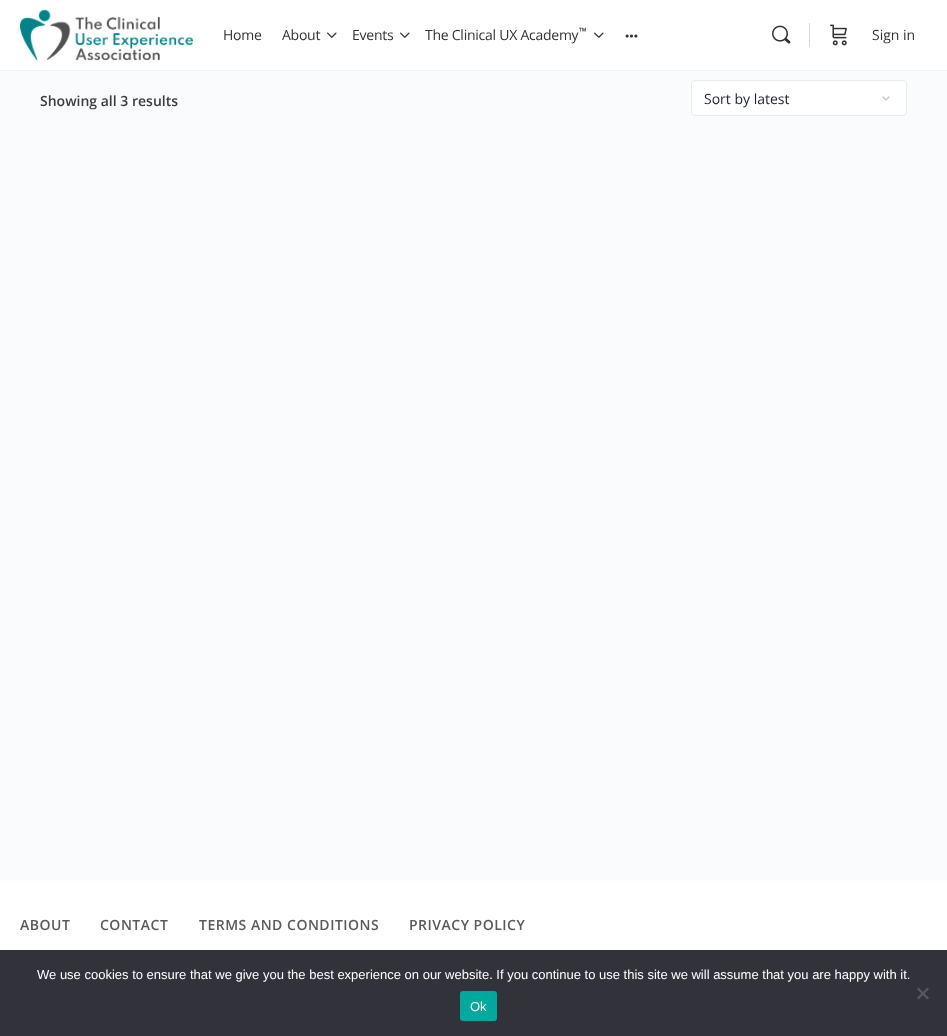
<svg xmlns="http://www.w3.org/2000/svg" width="947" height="1036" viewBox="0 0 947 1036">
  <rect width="100%" height="100%" fill="rgb(250,251,253)"/>
  <rect x="0" y="70" width="947" height="1" fill="rgb(242,243,246)"/>
  <rect x="0" y="0" width="947" height="70" fill="rgb(255,255,255)"/>
  <image x="20" y="9" width="173" height="52" href="pic1.png"/>
  <g font-family="Open Sans" font-size="14" letter-spacing="-0.25" fill="rgb(49,50,51)">
    <text x="223" y="40">Home</text>
    <text x="282" y="40">About</text>
  </g>
  <image x="327" y="32" width="10" height="6" href="pic2.png"/>
  <text x="352" y="40" font-family="Open Sans" font-size="14" letter-spacing="-0.25" fill="rgb(49,50,51)">Events</text>
  <image x="400" y="32" width="10" height="6" href="pic2.png"/>
  <text x="425" y="40" font-family="Open Sans" font-size="14" letter-spacing="-0.25" fill="rgb(49,50,51)">The Clinical UX Academy</text>
  <text x="579" y="35" font-family="Open Sans" font-size="10" letter-spacing="-0.25" fill="rgb(49,50,51)">™</text>
  <image x="594" y="32" width="10" height="6" href="pic2.png"/>
  <image x="625" y="34" width="13" height="4" href="pic3.png"/>
  <image x="772" y="25" width="19" height="19" href="pic4.png"/>
  <rect x="809" y="23" width="1" height="24" fill="rgb(214,214,214)"/>
  <image x="830" y="24" width="17" height="22" href="pic5.png"/>
  <text x="872" y="40" font-family="Open Sans" font-size="14" fill="rgb(49,50,51)">Sign in</text>
  <text x="40" y="106" font-family="Open Sans" font-size="14" font-weight="600" fill="rgb(57,61,66)">Showing all 3 results</text>
  <rect x="691" y="80" width="216" height="36" rx="4" fill="rgb(255,255,255)"/>
  <path d="M889 97L886 100L883 97" fill="none" stroke="rgb(196,202,209)" stroke-width="1.5" stroke-linecap="round" stroke-linejoin="round"/>
  <rect x="691.5" y="80.5" width="215" height="35" rx="3.5" fill="none" stroke="rgb(231,233,236)"/>
  <text x="704" y="104" font-family="Open Sans" font-size="14" fill="rgb(30,33,51)">Sort by latest</text>
  <rect x="0" y="881" width="947" height="69" fill="rgb(255,255,255)"/>
  <g font-family="Open Sans" font-size="14" font-weight="600" letter-spacing="0.5" fill="rgb(90,90,90)">
    <text x="20" y="930">ABOUT</text>
    <text x="100" y="930">CONTACT</text>
    <text x="199" y="930">TERMS AND CONDITIONS</text>
    <text x="409" y="930">PRIVACY POLICY</text>
  </g>
  <rect x="0" y="950" width="947" height="86" fill="rgb(50,50,58)"/>
  <text x="37" y="979" font-family="Liberation Sans" font-size="13" fill="rgb(255,255,255)">We use cookies to ensure that we give you the best experience on our website. If you continue to use this site we will assume that you are happy with it.</text>
  <path d="M927.5 987.5L929 989L918.5 999.5L917 998Z" fill="rgb(89,89,93)"/>
  <path d="M917 989L918.5 987.5L929 998L927.5 999.5Z" fill="rgb(89,89,93)"/>
  <rect x="460" y="991" width="37" height="30" rx="3" fill="rgb(0,169,157)"/>
  <text x="470" y="1011" font-family="Liberation Sans" font-size="13" fill="rgb(255,255,255)">Ok</text>
</svg>
